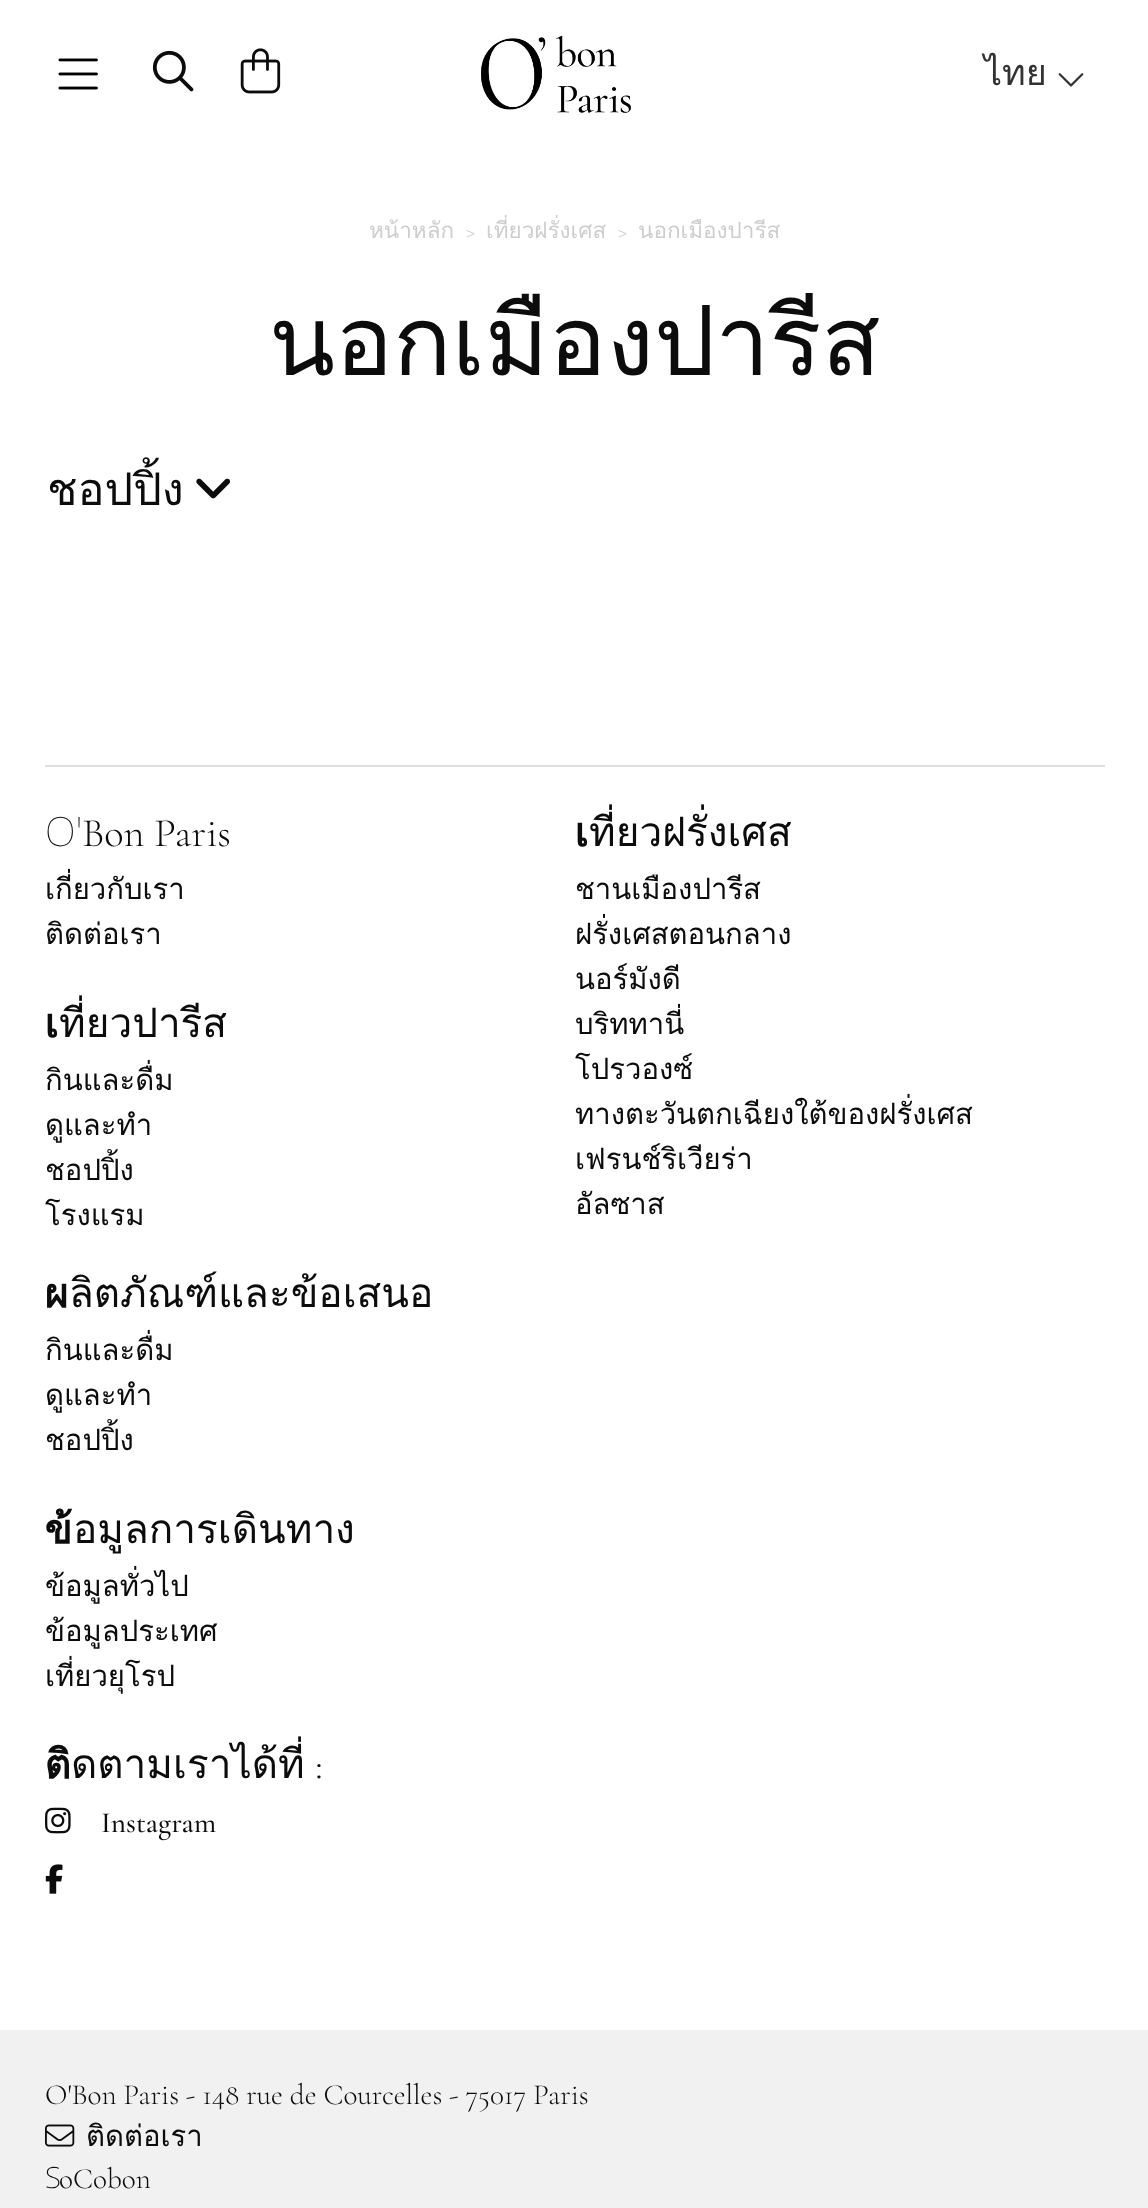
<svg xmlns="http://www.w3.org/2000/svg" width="1148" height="2208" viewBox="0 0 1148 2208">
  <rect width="100%" height="100%" fill="rgb(255,255,255)"/>
  <image x="58" y="58" width="40" height="32" href="pic1.png"/>
  <image x="152" y="50" width="42" height="42" href="pic2.png"/>
  <image x="240" y="48" width="41" height="46" href="pic3.png"/>
  <image x="481" y="35" width="150" height="78" href="pic4.png"/>
  <text x="984" y="85" font-family="Loma" font-size="36" fill="rgb(51,51,51)">ไทย</text>
  <image x="1058" y="73" width="26" height="14" href="pic5.png"/>
  <text x="369" y="238" font-family="Loma" font-size="22.5" fill="rgb(206,206,206)">หน้าหลัก</text>
  <text x="466" y="238" font-family="Cormorant Garamond" font-size="22.5" font-weight="300" fill="rgb(206,206,206)">&gt;</text>
  <text x="486" y="238" font-family="Loma" font-size="22.5" fill="rgb(206,206,206)">เที่ยวฝรั่งเศส</text>
  <text x="618" y="238" font-family="Cormorant Garamond" font-size="22.5" font-weight="300" fill="rgb(206,206,206)">&gt;</text>
  <text x="638" y="238" font-family="Loma" font-size="22.5" fill="rgb(206,206,206)">นอกเมืองปารีส</text>
  <text x="269" y="375" font-family="Noto Sans" font-size="96.75" font-weight="300" fill="rgb(12,12,12)">น</text>
  <text x="335" y="375" font-family="Loma" font-size="96.75" fill="rgb(12,12,12)">อกเมืองปารีส</text>
  <text x="47" y="505" font-family="Loma" font-size="45" fill="rgb(12,12,12)">ชอปปิ้ง</text>
  <image x="196" y="478" width="34" height="21" href="pic6.png"/>
  <rect x="45" y="765" width="1060" height="2" fill="rgb(223,221,226)"/>
  <text x="45" y="846" font-family="Noto Sans" font-size="40.5" font-weight="100" fill="rgb(12,12,12)">O'</text>
  <text x="82" y="846" font-family="Cormorant Garamond" font-size="40.5" font-weight="300" fill="rgb(12,12,12)">Bon Paris</text>
  <g font-family="Loma" font-size="29.25" fill="rgb(12,12,12)">
    <text>
      <tspan x="45" y="899">เกี่ยวกับเรา</tspan>
      <tspan x="45" y="944">ติดต่อเรา</tspan>
    </text>
  </g>
  <text x="45" y="1037" font-family="Noto Sans" font-size="40.5" font-weight="900" fill="rgb(12,12,12)">เ</text>
  <text x="59" y="1037" font-family="Loma" font-size="40.5" fill="rgb(12,12,12)">ที่ยวปารีส</text>
  <g font-family="Loma" font-size="29.25" fill="rgb(12,12,12)">
    <text>
      <tspan x="45" y="1090">กินและดื่ม</tspan>
      <tspan x="45" y="1135">ดูและทำ</tspan>
      <tspan x="45" y="1180">ชอปปิ้ง</tspan>
      <tspan x="45" y="1225">โรงแรม</tspan>
    </text>
  </g>
  <text x="575" y="846" font-family="Noto Sans" font-size="40.5" font-weight="900" fill="rgb(12,12,12)">เ</text>
  <text x="589" y="846" font-family="Loma" font-size="40.5" fill="rgb(12,12,12)">ที่ยวฝรั่งเศส</text>
  <g font-family="Loma" font-size="29.25" fill="rgb(12,12,12)">
    <text>
      <tspan x="575" y="899">ชานเมืองปารีส</tspan>
      <tspan x="575" y="944">ฝรั่งเศสตอนกลาง</tspan>
      <tspan x="575" y="989">นอร์มังดี</tspan>
      <tspan x="575" y="1034">บริททานี่</tspan>
      <tspan x="575" y="1079">โปรวองซ์</tspan>
      <tspan x="575" y="1124">ทางตะวันตกเฉียงใต้ของฝรั่งเศส</tspan>
      <tspan x="575" y="1169">เฟรนช์ริเวียร่า</tspan>
      <tspan x="575" y="1214">อัลซาส</tspan>
    </text>
  </g>
  <text x="45" y="1307" font-family="Noto Sans" font-size="40.5" font-weight="bold" fill="rgb(12,12,12)">ผ</text>
  <text x="69" y="1307" font-family="Loma" font-size="40.5" fill="rgb(12,12,12)">ลิตภัณฑ์และข้อเสนอ</text>
  <g font-family="Loma" font-size="29.25" fill="rgb(12,12,12)">
    <text>
      <tspan x="45" y="1360">กินและดื่ม</tspan>
      <tspan x="45" y="1405">ดูและทำ</tspan>
      <tspan x="45" y="1450">ชอปปิ้ง</tspan>
    </text>
  </g>
  <text x="45" y="1543" font-family="Noto Sans" font-size="40.5" font-weight="900" fill="rgb(12,12,12)">ข้</text>
  <text x="73" y="1543" font-family="Loma" font-size="40.5" fill="rgb(12,12,12)">อมูลการเดินทาง</text>
  <g font-family="Loma" font-size="29.25" fill="rgb(12,12,12)">
    <text>
      <tspan x="45" y="1596">ข้อมูลทั่วไป</tspan>
      <tspan x="45" y="1641">ข้อมูลประเทศ</tspan>
      <tspan x="45" y="1686">เที่ยวยุโรป</tspan>
    </text>
  </g>
  <text x="45" y="1778" font-family="Noto Sans" font-size="40.5" font-weight="900" fill="rgb(12,12,12)">ติ</text>
  <text x="71" y="1778" font-family="Loma" font-size="40.5" fill="rgb(12,12,12)">ดตามเราได้ที่</text>
  <text x="315" y="1778" font-family="Cormorant Garamond" font-size="40.5" font-weight="300" fill="rgb(12,12,12)">:</text>
  <image x="45" y="1807" width="26" height="27" href="pic7.png"/>
  <text x="101" y="1832" font-family="Cormorant Garamond" font-size="29.25" font-weight="500" fill="rgb(12,12,12)">Instagram</text>
  <image x="45" y="1864" width="18" height="30" href="pic8.png"/>
  <rect x="0" y="2030" width="1148" height="178" fill="rgb(241,241,241)"/>
  <text x="45" y="2104" font-family="Cormorant Garamond" font-size="29.25" font-weight="300" fill="rgb(12,12,12)">O'Bon Paris - 148 rue de Courcelles - 75017 Paris</text>
  <image x="45" y="2124" width="30" height="23" href="pic9.png"/>
  <text x="86" y="2146" font-family="Loma" font-size="29.25" fill="rgb(12,12,12)">ติดต่อเรา</text>
  <text x="45" y="2188" font-family="Noto Sans" font-size="29.25" font-weight="200" fill="rgb(12,12,12)">S</text>
  <text x="59" y="2188" font-family="Cormorant Garamond" font-size="29.25" font-weight="300" fill="rgb(12,12,12)">oCobon</text>
</svg>
